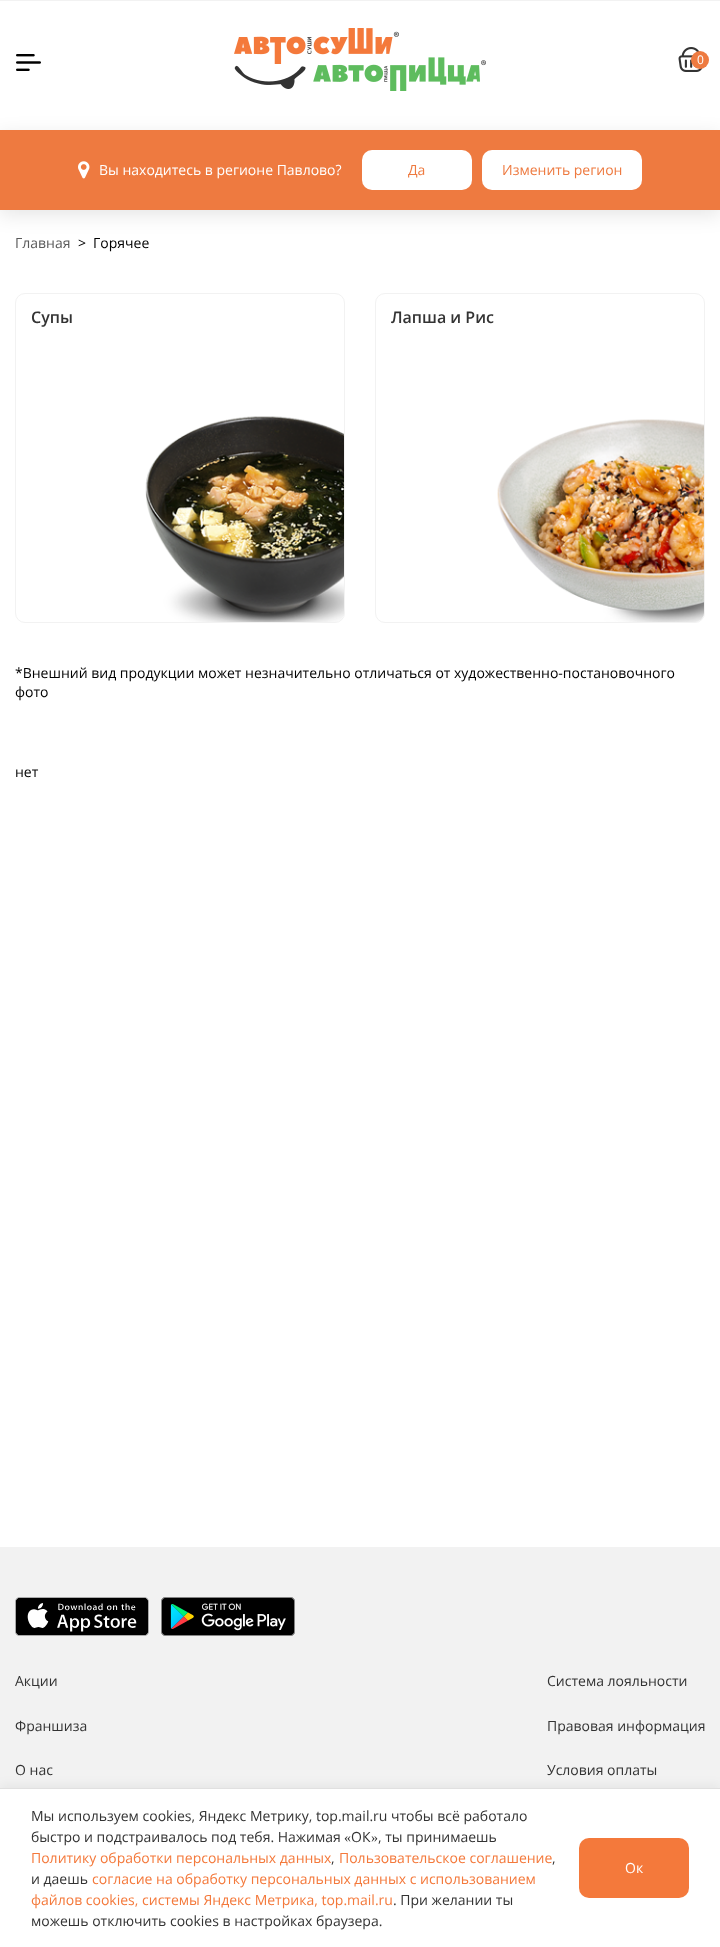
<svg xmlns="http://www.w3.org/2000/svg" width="720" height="1947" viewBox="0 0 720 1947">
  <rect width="100%" height="100%" fill="rgb(255,255,255)"/>
  <rect x="0" y="0" width="720" height="1" fill="rgb(242,242,242)"/>
  <image x="16" y="54" width="25" height="17" href="pic1.png"/>
  <image x="234" y="28" width="252" height="63" href="pic2.png"/>
  <image x="678" y="47" width="25" height="25" href="pic3.png"/>
  <circle cx="700" cy="60" r="9" fill="rgb(238,122,64)"/>
  <text x="697" y="64" font-family="Open Sans" font-size="12" fill="rgb(255,255,255)">0</text>
  <rect x="0" y="135" width="720" height="80" fill="rgba(0,0,0,0.1)" filter="blur(9.5px)"/>
  <rect x="0" y="130" width="720" height="80" fill="rgb(238,122,64)"/>
  <image x="78" y="161" width="12" height="18" href="pic4.png"/>
  <text x="99" y="175" font-family="Open Sans" font-size="14" fill="rgb(255,255,255)">Вы находитесь в регионе Павлово?</text>
  <rect x="362" y="150" width="110" height="40" rx="10" fill="rgb(255,255,255)"/>
  <text x="408" y="175" font-family="Open Sans" font-size="14" fill="rgb(238,122,64)">Да</text>
  <rect x="482" y="150" width="160" height="40" rx="10" fill="rgb(255,255,255)"/>
  <text x="502" y="175" font-family="Open Sans" font-size="14" fill="rgb(238,122,64)">Изменить регион</text>
  <text x="15" y="248" font-family="Open Sans" font-size="14" fill="rgb(90,90,90)">Главная</text>
  <g font-family="Open Sans" font-size="14" fill="rgb(0,0,0)">
    <text x="78" y="248">&gt;</text>
    <text x="93" y="248">Горячее</text>
  </g>
  <rect x="15.5" y="293.5" width="329" height="329" rx="9.5" fill="none" stroke="rgb(242,242,242)"/>
  <text x="31" y="323" font-family="Open Sans" font-size="16" font-weight="600" fill="rgb(51,51,51)">Супы</text>
  <image x="145" y="416" width="199" height="206" href="pic5.png"/>
  <rect x="375.5" y="293.5" width="329" height="329" rx="9.5" fill="none" stroke="rgb(242,242,242)"/>
  <text x="391" y="323" font-family="Open Sans" font-size="16" font-weight="600" fill="rgb(51,51,51)">Лапша и Рис</text>
  <image x="497" y="419" width="207" height="203" href="pic6.png"/>
  <g font-family="Open Sans" font-size="14" fill="rgb(0,0,0)">
    <text>
      <tspan x="15" y="678">*Внешний вид продукции может незначительно отличаться от художественно-постановочного</tspan>
      <tspan x="15" y="697">фото</tspan>
    </text>
    <text x="15" y="777">нет</text>
  </g>
  <rect x="0" y="1547" width="720" height="241" fill="rgb(242,242,242)"/>
  <image x="15" y="1597" width="134" height="39" href="pic7.png"/>
  <image x="161" y="1597" width="134" height="39" href="pic8.png"/>
  <g font-family="Open Sans" font-size="14" fill="rgb(51,51,51)">
    <text x="15" y="1686">Акции</text>
    <text x="15" y="1731">Франшиза</text>
    <text x="15" y="1775">О нас</text>
    <text x="547" y="1686">Система лояльности</text>
    <text x="547" y="1731">Правовая информация</text>
    <text x="547" y="1775">Условия оплаты</text>
  </g>
  <rect x="0" y="1786" width="720" height="159" fill="rgba(0,0,0,0.06)" filter="blur(6px)"/>
  <rect x="0" y="1789" width="720" height="158" fill="rgb(255,255,255)"/>
  <rect x="0" y="1788" width="720" height="1" fill="rgb(224,224,224)"/>
  <g font-family="Open Sans" font-size="14" fill="rgb(51,51,51)">
    <text>
      <tspan x="31" y="1821">Мы используем cookies, Яндекс Метрику, top.mail.ru чтобы всё работало</tspan>
      <tspan x="31" y="1842">быстро и подстраивалось под тебя. Нажимая</tspan>
    </text>
  </g>
  <text x="344" y="1842" font-family="Liberation Serif" font-size="14" fill="rgb(51,51,51)">«</text>
  <text x="351" y="1842" font-family="Open Sans" font-size="14" fill="rgb(51,51,51)">ОК</text>
  <text x="371" y="1842" font-family="Liberation Serif" font-size="14" fill="rgb(51,51,51)">»</text>
  <text x="378" y="1842" font-family="Open Sans" font-size="14" fill="rgb(51,51,51)">, ты принимаешь</text>
  <text x="31" y="1863" font-family="Open Sans" font-size="14" fill="rgb(244,121,59)">Политику обработки персональных данных</text>
  <text x="331" y="1863" font-family="Open Sans" font-size="14" fill="rgb(51,51,51)">,</text>
  <text x="339" y="1863" font-family="Open Sans" font-size="14" fill="rgb(244,121,59)">Пользовательское соглашение</text>
  <g font-family="Open Sans" font-size="14" fill="rgb(51,51,51)">
    <text x="552" y="1863">,</text>
    <text x="31" y="1884">и даешь</text>
  </g>
  <g font-family="Open Sans" font-size="14" fill="rgb(244,121,59)">
    <text x="92" y="1884">согласие на обработку персональных данных с использованием</text>
    <text x="31" y="1905">файлов cookies, системы Яндекс Метрика, top.mail.ru</text>
  </g>
  <g font-family="Open Sans" font-size="14" fill="rgb(51,51,51)">
    <text x="393" y="1905">. При желании ты</text>
    <text x="31" y="1926">можешь отключить cookies в настройках браузера.</text>
  </g>
  <rect x="579" y="1838" width="110" height="60" rx="10" fill="rgb(244,121,59)"/>
  <text x="625" y="1873" font-family="Open Sans" font-size="14" fill="rgb(255,255,255)">Ок</text>
</svg>
